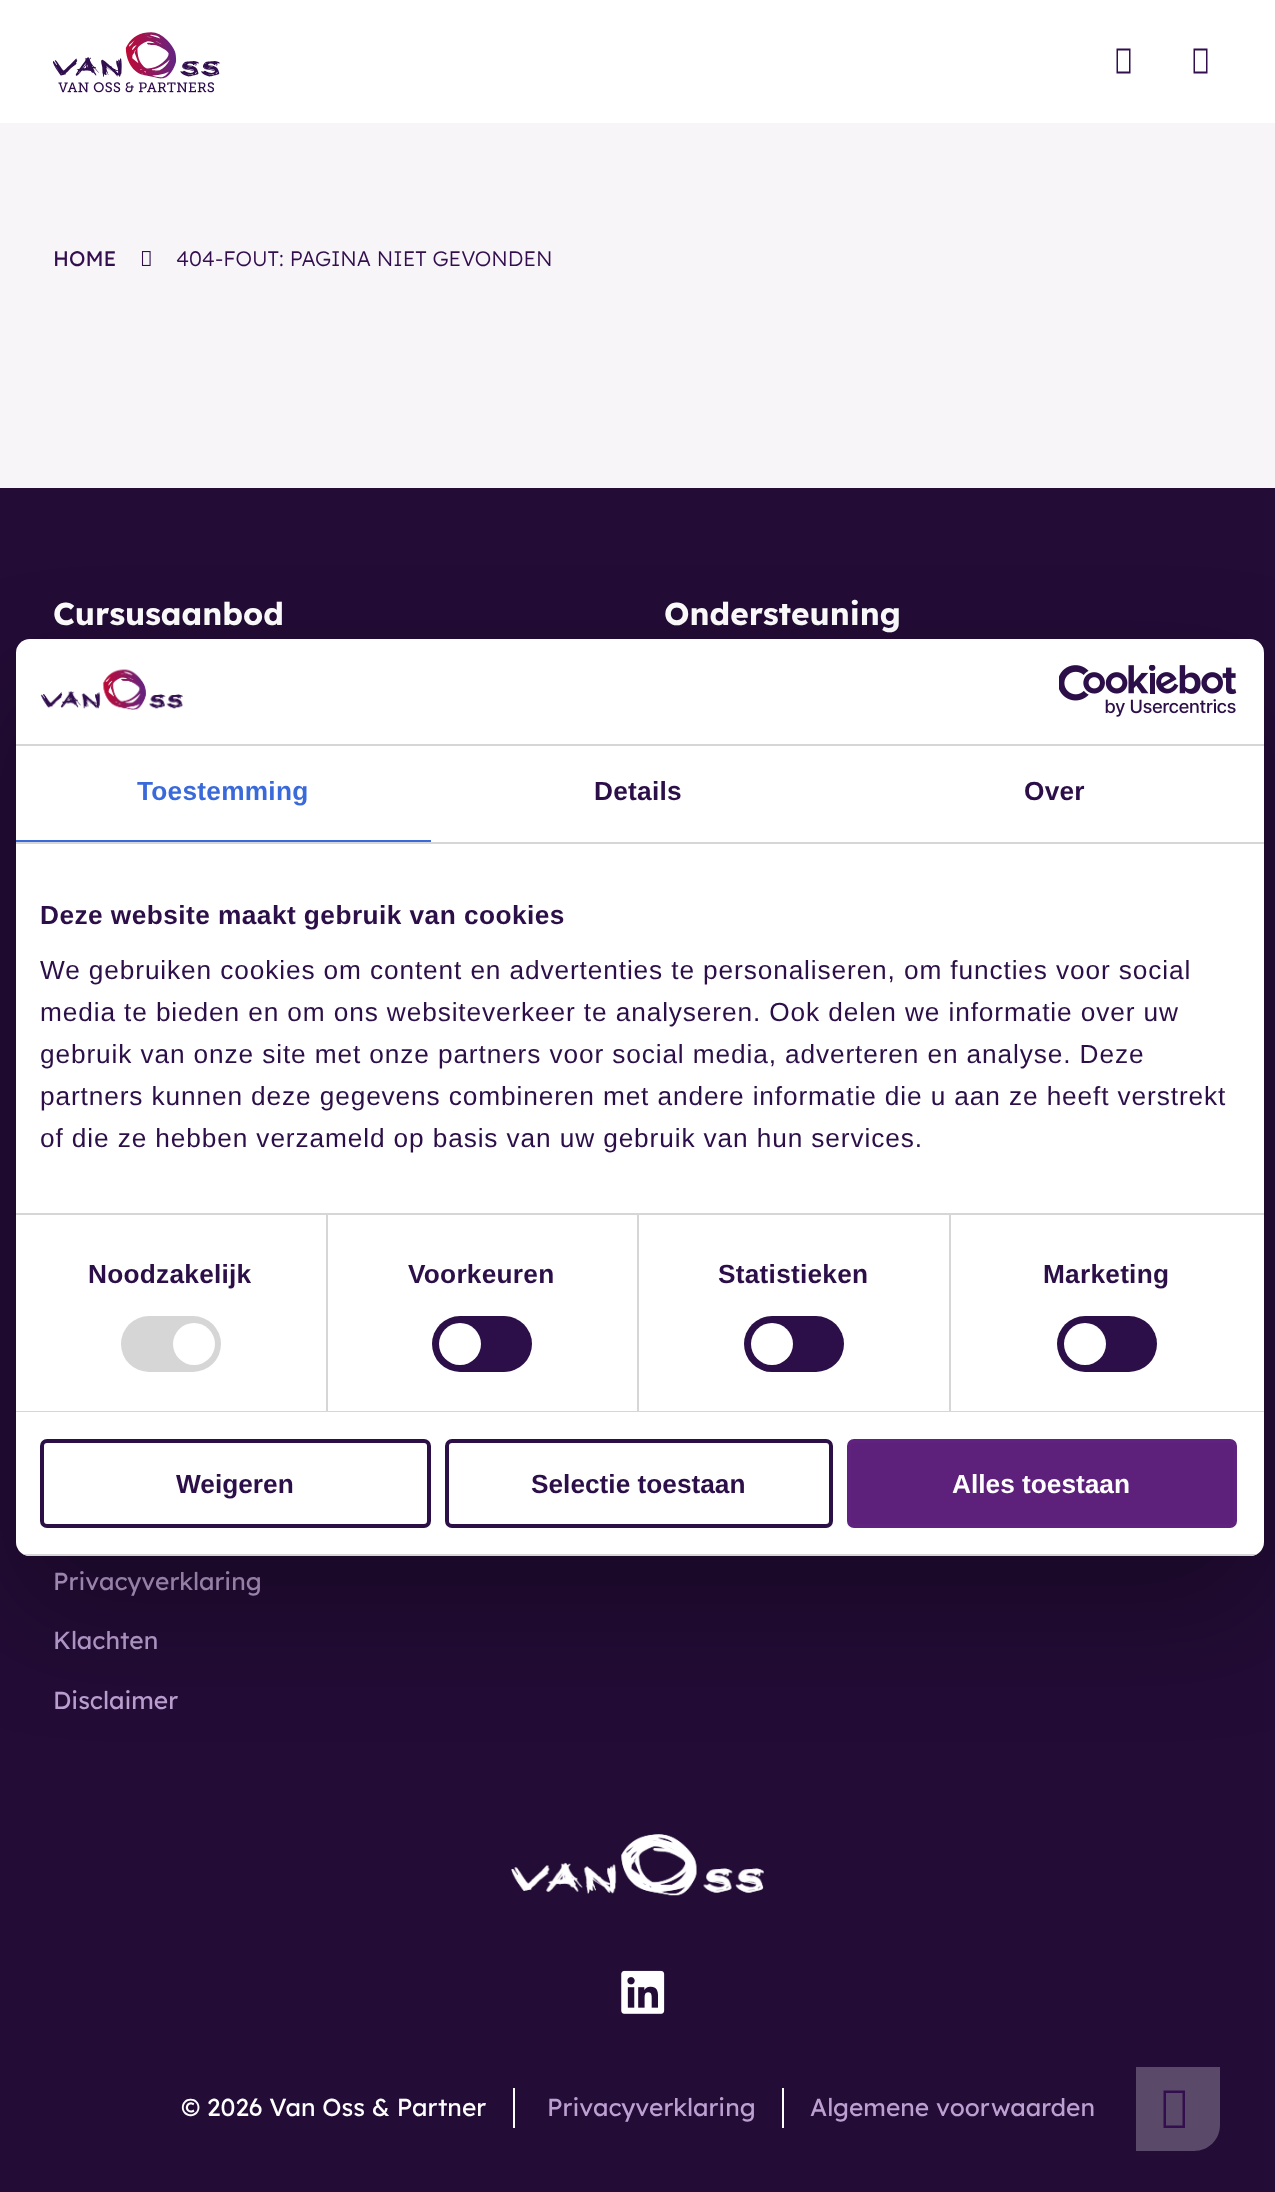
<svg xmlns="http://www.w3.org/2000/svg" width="1275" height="2192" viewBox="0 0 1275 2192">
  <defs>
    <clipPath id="clip1"><rect x="16" y="639" width="1248" height="917" rx="14"/></clipPath>
  </defs>
  <rect width="100%" height="100%" fill="rgb(255,255,255)"/>
  <image x="53" y="32" width="167" height="61" href="pic1.png"/>
  <path d="M1116.5 73.5V48.5H1130.5V73.5ZM1118 71.5H1129V50.5H1118Z" fill="rgb(50,14,78)"/>
  <path d="M1193.5 73.5V48.5H1207.5V73.5ZM1195 71.5H1206V50.5H1195Z" fill="rgb(50,14,78)"/>
  <rect x="0" y="123" width="1275" height="365" fill="rgb(247,245,248)"/>
  <text x="53" y="266" font-family="Lexend" font-size="21" fill="rgb(50,14,78)">HOME</text>
  <image x="141" y="251" width="10" height="15" href="pic2.png"/>
  <text x="176" y="266" font-family="Lexend" font-size="21" font-weight="300" fill="rgb(50,14,78)">404-FOUT: PAGINA NIET GEVONDEN</text>
  <rect x="0" y="488" width="1275" height="1704" fill="rgb(35,12,54)"/>
  <g font-family="Lexend" font-size="31.5" font-weight="bold" fill="rgb(255,255,255)">
    <text x="53" y="625">Cursusaanbod</text>
    <text x="664" y="625">Ondersteuning</text>
  </g>
  <g font-family="Lexend" font-size="24.5" fill="rgb(188,160,210)">
    <text x="53" y="1590">Privacyverklaring</text>
    <text x="53" y="1649">Klachten</text>
    <text x="53" y="1709">Disclaimer</text>
  </g>
  <image x="511" y="1834" width="253" height="62" href="pic3.png"/>
  <image x="621" y="1970" width="44" height="44" href="pic4.png"/>
  <rect x="513" y="2088" width="2" height="40" fill="rgb(255,255,255)"/>
  <text x="181" y="2116" font-family="Lexend" font-size="24.5" fill="rgb(255,255,255)">© 2026 Van Oss &amp; Partner</text>
  <rect x="782" y="2088" width="2" height="40" fill="rgb(255,255,255)"/>
  <g font-family="Lexend" font-size="24.5" fill="rgb(188,160,210)">
    <text x="547" y="2116">Privacyverklaring</text>
    <text x="810" y="2116">Algemene voorwaarden</text>
  </g>
  <rect x="16" y="695" width="1248" height="917" rx="14" fill="rgba(0,0,0,0.3)" filter="blur(59.5px)"/>
  <rect x="16" y="639" width="1248" height="917" rx="14" fill="rgb(255,255,255)"/>
  <rect x="16" y="744" width="1248" height="2" fill="rgb(214,214,214)"/>
  <image x="40" y="669" width="143" height="41" href="pic5.png"/>
  <image x="1059" y="665" width="178" height="52" href="pic6.png"/>
  <rect x="16" y="842" width="1248" height="2" fill="rgb(214,214,214)"/>
  <rect x="16" y="840" width="415" height="2" fill="rgb(58,106,218)"/>
  <text x="137" y="800" font-family="Liberation Sans" font-size="26.25" font-weight="bold" letter-spacing="0.25" fill="rgb(58,106,218)">Toestemming</text>
  <g font-family="Liberation Sans" font-size="26.25" font-weight="bold" letter-spacing="0.25" fill="rgb(44,15,72)">
    <text x="594" y="800">Details</text>
    <text x="1024" y="800">Over</text>
  </g>
  <rect x="16" y="1213" width="1248" height="2" fill="rgb(214,214,214)"/>
  <text x="40" y="924" font-family="Liberation Sans" font-size="26.25" font-weight="bold" letter-spacing="0.45" fill="rgb(44,15,72)">Deze website maakt gebruik van cookies</text>
  <g font-family="Liberation Sans" font-size="26.25" letter-spacing="0.88" fill="rgb(44,15,72)">
    <text>
      <tspan x="40" y="979">We gebruiken cookies om content en advertenties te personaliseren, om functies voor social</tspan>
      <tspan x="40" y="1021">media te bieden en om ons websiteverkeer te analyseren. Ook delen we informatie over uw</tspan>
      <tspan x="40" y="1063">gebruik van onze site met onze partners voor social media, adverteren en analyse. Deze</tspan>
      <tspan x="40" y="1105">partners kunnen deze gegevens combineren met andere informatie die u aan ze heeft verstrekt</tspan>
      <tspan x="40" y="1147">of die ze hebben verzameld op basis van uw gebruik van hun services.</tspan>
    </text>
  </g>
  <rect x="16" y="1411" width="1248" height="1" fill="rgb(214,214,214)"/>
  <rect x="326" y="1215" width="2" height="196" fill="rgb(214,214,214)"/>
  <text x="88" y="1283" font-family="Liberation Sans" font-size="26.25" font-weight="bold" letter-spacing="0.25" fill="rgb(44,15,72)">Noodzakelijk</text>
  <rect x="121" y="1316" width="100" height="56" rx="28" fill="rgb(214,214,214)"/>
  <circle cx="194" cy="1344" r="21" fill="rgb(255,255,255)"/>
  <rect x="637" y="1215" width="2" height="196" fill="rgb(214,214,214)"/>
  <text x="408" y="1283" font-family="Liberation Sans" font-size="26.25" font-weight="bold" letter-spacing="0.25" fill="rgb(44,15,72)">Voorkeuren</text>
  <rect x="432" y="1316" width="100" height="56" rx="28" fill="rgb(44,15,72)"/>
  <circle cx="460" cy="1344" r="21" fill="rgb(255,255,255)"/>
  <rect x="949" y="1215" width="2" height="196" fill="rgb(214,214,214)"/>
  <text x="718" y="1283" font-family="Liberation Sans" font-size="26.25" font-weight="bold" letter-spacing="0.25" fill="rgb(44,15,72)">Statistieken</text>
  <rect x="744" y="1316" width="100" height="56" rx="28" fill="rgb(44,15,72)"/>
  <circle cx="772" cy="1344" r="21" fill="rgb(255,255,255)"/>
  <text x="1043" y="1283" font-family="Liberation Sans" font-size="26.25" font-weight="bold" letter-spacing="0.25" fill="rgb(44,15,72)">Marketing</text>
  <rect x="1057" y="1316" width="100" height="56" rx="28" fill="rgb(44,15,72)"/>
  <circle cx="1085" cy="1344" r="21" fill="rgb(255,255,255)"/>
  <g clip-path="url(#clip1)">
    <rect x="16" y="1554" width="1248" height="2" fill="rgb(214,214,214)"/>
  </g>
  <rect x="42" y="1441" width="387" height="85" rx="5" fill="none" stroke="rgb(45,15,72)" stroke-width="4"/>
  <text x="176" y="1493" font-family="Liberation Sans" font-size="26.25" font-weight="bold" fill="rgb(44,15,72)">Weigeren</text>
  <rect x="447" y="1441" width="384" height="85" rx="5" fill="none" stroke="rgb(45,15,72)" stroke-width="4"/>
  <text x="531" y="1493" font-family="Liberation Sans" font-size="26.25" font-weight="bold" fill="rgb(44,15,72)">Selectie toestaan</text>
  <rect x="849" y="1441" width="386" height="85" rx="5" fill="rgb(93,33,123)" stroke="rgb(95,35,127)" stroke-width="4"/>
  <text x="952" y="1493" font-family="Liberation Sans" font-size="26.25" font-weight="bold" fill="rgb(255,255,255)">Alles toestaan</text>
  <path d="M1136 2067H1220V2125C1220 2139.5 1208.5 2151 1194 2151H1136Z" fill="rgb(90,73,104)"/>
  <path d="M1163.5 2128V2090.5H1185V2128ZM1166 2125.5H1182.5V2093H1166Z" fill="rgb(50,14,78)"/>
</svg>
